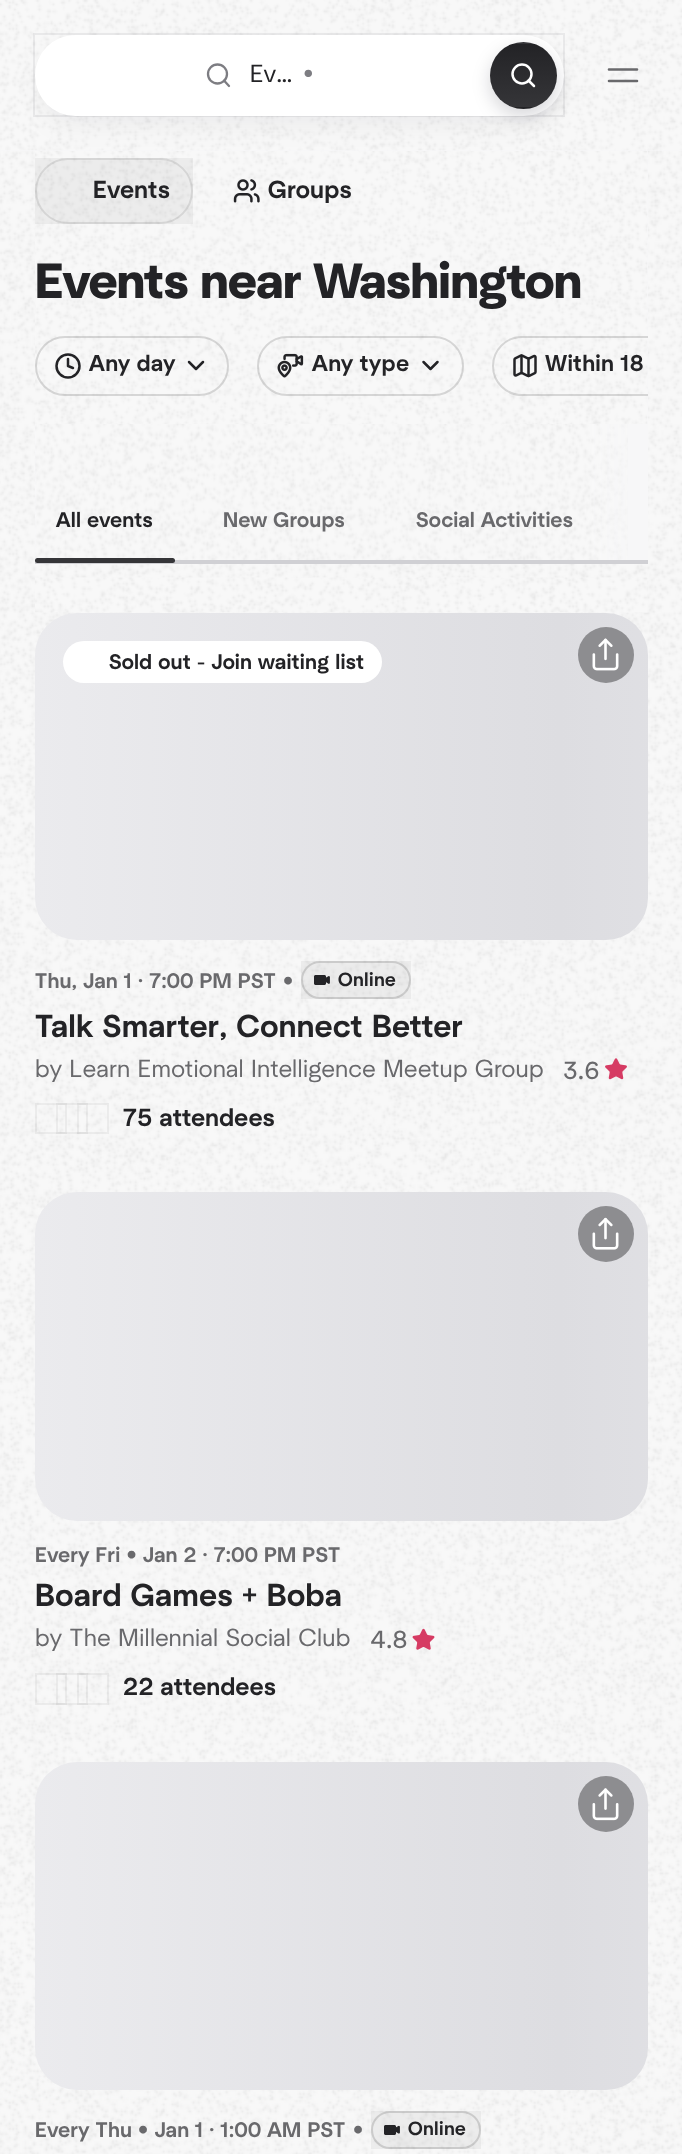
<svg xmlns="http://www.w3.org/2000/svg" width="682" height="2154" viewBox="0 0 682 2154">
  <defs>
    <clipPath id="clip1"><rect x="490" y="42" width="67" height="67" rx="33.5"/></clipPath>
    <linearGradient id="g1" gradientUnits="userSpaceOnUse" x1="523" y1="-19" x2="523" y2="44"><stop offset="0" stop-color="rgb(35,35,38)"/><stop offset="1" stop-color="rgb(53,53,56)"/></linearGradient>
    <linearGradient id="g2" gradientUnits="userSpaceOnUse" x1="523" y1="44" x2="523" y2="107"><stop offset="0" stop-color="rgb(35,35,38)"/><stop offset="1" stop-color="rgb(53,53,56)"/></linearGradient>
    <linearGradient id="g3" gradientUnits="userSpaceOnUse" x1="523" y1="107" x2="523" y2="170"><stop offset="0" stop-color="rgb(35,35,38)"/><stop offset="1" stop-color="rgb(53,53,56)"/></linearGradient>
    <clipPath id="clip2"><rect x="35" y="336" width="613" height="60"/></clipPath>
    <linearGradient id="g4" gradientUnits="userSpaceOnUse" x1="35" y1="776" x2="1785" y2="776"><stop offset="0" stop-color="rgb(235,235,238)"/><stop offset="0.3" stop-color="rgb(221,221,225)"/><stop offset="0.6" stop-color="rgb(235,235,238)"/></linearGradient>
    <linearGradient id="g5" gradientUnits="userSpaceOnUse" x1="35" y1="1356" x2="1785" y2="1356"><stop offset="0" stop-color="rgb(235,235,238)"/><stop offset="0.3" stop-color="rgb(221,221,225)"/><stop offset="0.6" stop-color="rgb(235,235,238)"/></linearGradient>
    <linearGradient id="g6" gradientUnits="userSpaceOnUse" x1="35" y1="1926" x2="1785" y2="1926"><stop offset="0" stop-color="rgb(235,235,238)"/><stop offset="0.3" stop-color="rgb(221,221,225)"/><stop offset="0.6" stop-color="rgb(235,235,238)"/></linearGradient>
  </defs>
  <rect width="100%" height="100%" fill="rgb(255,255,255)"/>
  <image x="0" y="151" width="682" height="2003" href="pic1.png"/>
  <rect x="0" y="150" width="682" height="1" fill="rgb(247,247,248)"/>
  <image x="0" y="0" width="682" height="151" href="pic2.png"/>
  <rect x="34" y="34" width="530" height="82" fill="none" stroke="rgba(0,0,16,0.06)" stroke-width="2"/>
  <rect x="647" y="151" width="1" height="273" fill="rgb(247,247,248)"/>
  <image x="35" y="151" width="613" height="273" href="pic3.png"/>
  <rect x="35" y="158" width="158" height="66" fill="rgba(18,18,21,0.05)"/>
  <rect x="36" y="159" width="156" height="64" rx="32" fill="none" stroke="rgba(18,18,21,0.1)" stroke-width="2"/>
  <rect x="42" y="56" width="515" height="67" rx="33.5" fill="rgba(0,0,16,0.06)" filter="blur(14px)"/>
  <rect x="35" y="35" width="529" height="81" rx="40.5" fill="rgb(255,255,255)"/>
  <path d="M229 86L224 80.5" fill="none" stroke="rgb(125,125,130)" stroke-width="2.3" stroke-linecap="round" stroke-linejoin="round"/>
  <circle cx="217.5" cy="74" r="9.5" fill="none" stroke="rgb(125,125,130)" stroke-width="2.3"/>
  <text x="250" y="82" font-family="'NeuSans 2'" font-size="24.5" letter-spacing="0.5" fill="rgb(35,35,38)">Ev…</text>
  <text x="303" y="82" font-family="'NeuSans 2'" font-size="24.5" letter-spacing="0.5" fill="rgb(125,125,130)">•</text>
  <rect x="490" y="49" width="67" height="67" rx="33.5" fill="rgba(0,0,16,0.16)" filter="blur(9px)"/>
  <g clip-path="url(#clip1)">
    <rect x="512" y="42" width="23" height="2" fill="url(#g1)"/>
    <rect x="490" y="44" width="67" height="63" fill="url(#g2)"/>
    <rect x="512" y="107" width="23" height="2" fill="url(#g3)"/>
  </g>
  <path d="M534 86L528.5 80.5" fill="none" stroke="rgb(255,255,255)" stroke-width="2.5" stroke-linecap="round" stroke-linejoin="round"/>
  <circle cx="522" cy="74" r="9.5" fill="none" stroke="rgb(255,255,255)" stroke-width="2.5"/>
  <path d="M609 81H637M609 69.5H637" fill="none" stroke="rgb(105,105,108)" stroke-width="2.6" stroke-linecap="round" stroke-linejoin="round"/>
  <text x="93" y="198" font-family="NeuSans" font-size="24.5" font-weight="500" letter-spacing="0.5" fill="rgb(35,35,38)">Events</text>
  <image x="233" y="179" width="27" height="24" href="pic4.png"/>
  <text x="268" y="198" font-family="NeuSans" font-size="24.5" font-weight="500" letter-spacing="0.5" fill="rgb(35,35,38)">Groups</text>
  <text x="35" y="298" font-family="NeuSans" font-size="49" font-weight="bold" fill="rgb(35,35,38)">Events near Washington</text>
  <rect x="36" y="337" width="192" height="58" rx="29" fill="none" stroke="rgba(18,18,21,0.15)" stroke-width="2"/>
  <circle cx="68" cy="366" r="11.5" fill="none" stroke="rgb(35,35,38)" stroke-width="2.5"/>
  <path d="M68 359V366L73 368" fill="none" stroke="rgb(35,35,38)" stroke-width="2.5" stroke-linecap="round" stroke-linejoin="round"/>
  <text x="89" y="371" font-family="NeuSans" font-size="22.75" font-weight="500" letter-spacing="0.5" fill="rgb(35,35,38)">Any day</text>
  <path d="M189 362L196 369L203 362" fill="none" stroke="rgb(35,35,38)" stroke-width="2.5" stroke-linecap="round" stroke-linejoin="round"/>
  <rect x="258" y="337" width="205" height="58" rx="29" fill="none" stroke="rgba(18,18,21,0.15)" stroke-width="2"/>
  <image x="277" y="353" width="27" height="25" href="pic5.png"/>
  <text x="312" y="371" font-family="NeuSans" font-size="22.75" font-weight="500" letter-spacing="0.5" fill="rgb(35,35,38)">Any type</text>
  <path d="M423.5 362L430.5 369L437.5 362" fill="none" stroke="rgb(35,35,38)" stroke-width="2.5" stroke-linecap="round" stroke-linejoin="round"/>
  <g clip-path="url(#clip2)">
    <rect x="493" y="337" width="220" height="58" rx="29" fill="none" stroke="rgba(18,18,21,0.15)" stroke-width="2"/>
  </g>
  <image x="513" y="354" width="24" height="24" href="pic6.png"/>
  <text x="545" y="371" font-family="NeuSans" font-size="22.75" font-weight="500" letter-spacing="0.5" fill="rgb(35,35,38)">Within 18</text>
  <rect x="35" y="424" width="613" height="136" fill="rgb(247,247,248)"/>
  <image x="35" y="424" width="593" height="136" href="pic7.png"/>
  <rect x="35" y="560" width="613" height="4" fill="rgb(208,208,212)"/>
  <text x="56" y="527" font-family="NeuSans" font-size="21" font-weight="500" letter-spacing="0.4" fill="rgb(35,35,38)">All events</text>
  <rect x="35" y="558" width="140" height="5" rx="2.5" fill="rgb(53,53,56)"/>
  <g font-family="NeuSans" font-size="21" font-weight="500" letter-spacing="0.4" fill="rgb(105,105,108)">
    <text x="223" y="527">New Groups</text>
    <text x="416" y="527">Social Activities</text>
  </g>
  <image x="35" y="577" width="613" height="36" href="pic8.png"/>
  <rect x="35" y="613" width="613" height="327" rx="42" fill="url(#g4)"/>
  <rect x="63" y="641" width="319" height="42" rx="21" fill="rgb(255,255,255)"/>
  <text x="109" y="669" font-family="NeuSans" font-size="21" font-weight="500" letter-spacing="0.4" fill="rgb(35,35,38)">Sold out - Join waiting list</text>
  <circle cx="606" cy="655" r="28" fill="rgb(141,141,144)"/>
  <image x="592" y="638" width="27" height="33" href="pic9.png"/>
  <g font-family="NeuSans" font-size="21" font-weight="500" letter-spacing="0.4" fill="rgb(105,105,108)">
    <text x="35" y="988">Thu, Jan 1 · 7:00 PM PST</text>
    <text x="283" y="988">•</text>
  </g>
  <rect x="301" y="961" width="110" height="38" fill="rgba(18,18,21,0.05)"/>
  <rect x="302" y="962" width="108" height="36" rx="18" fill="none" stroke="rgba(18,18,21,0.15)" stroke-width="2"/>
  <image x="314" y="975" width="16" height="10" href="pic10.png"/>
  <text x="338" y="986" font-family="NeuSans" font-size="19" font-weight="500" letter-spacing="0.5" fill="rgb(35,35,38)">Online</text>
  <text x="35" y="1037" font-family="NeuSans" font-size="31.5" font-weight="500" letter-spacing="0.6" fill="rgb(35,35,38)">Talk Smarter, Connect Better</text>
  <text x="35" y="1077" font-family="'NeuSans 2'" font-size="24.5" letter-spacing="0.5" fill="rgb(105,105,108)">by Learn Emotional Intelligence Meetup Group</text>
  <text x="563" y="1079" font-family="NeuSans" font-size="24.5" letter-spacing="0.5" fill="rgb(105,105,108)">3.6</text>
  <image x="605" y="1058" width="22" height="22" href="pic11.png"/>
  <rect x="36" y="1104" width="30" height="29" fill="none" stroke="rgba(18,18,21,0.05)" stroke-width="2"/>
  <rect x="57" y="1104" width="30" height="29" fill="none" stroke="rgba(18,18,21,0.05)" stroke-width="2"/>
  <rect x="78" y="1104" width="30" height="29" fill="none" stroke="rgba(18,18,21,0.05)" stroke-width="2"/>
  <text x="123" y="1126" font-family="NeuSans" font-size="24.5" font-weight="500" letter-spacing="0.5" fill="rgb(35,35,38)">75 attendees</text>
  <rect x="35" y="1192" width="613" height="329" rx="42" fill="url(#g5)"/>
  <circle cx="606" cy="1234" r="28" fill="rgb(141,141,144)"/>
  <image x="592" y="1217" width="27" height="33" href="pic12.png"/>
  <text x="35" y="1562" font-family="NeuSans" font-size="21" font-weight="500" letter-spacing="0.4" fill="rgb(105,105,108)">Every Fri • Jan 2 · 7:00 PM PST</text>
  <text x="35" y="1606" font-family="NeuSans" font-size="31.5" font-weight="500" letter-spacing="0.6" fill="rgb(35,35,38)">Board Games + Boba</text>
  <text x="35" y="1646" font-family="'NeuSans 2'" font-size="24.5" letter-spacing="0.5" fill="rgb(105,105,108)">by The Millennial Social Club</text>
  <text x="370" y="1648" font-family="NeuSans" font-size="24.5" letter-spacing="0.5" fill="rgb(105,105,108)">4.8</text>
  <image x="412" y="1628" width="23" height="22" href="pic13.png"/>
  <rect x="36" y="1674" width="30" height="30" fill="none" stroke="rgba(18,18,21,0.05)" stroke-width="2"/>
  <rect x="57" y="1674" width="30" height="30" fill="none" stroke="rgba(18,18,21,0.05)" stroke-width="2"/>
  <rect x="78" y="1674" width="30" height="30" fill="none" stroke="rgba(18,18,21,0.05)" stroke-width="2"/>
  <text x="123" y="1695" font-family="NeuSans" font-size="24.5" font-weight="500" letter-spacing="0.5" fill="rgb(35,35,38)">22 attendees</text>
  <rect x="35" y="1762" width="613" height="328" rx="42" fill="url(#g6)"/>
  <circle cx="606" cy="1804" r="28" fill="rgb(141,141,144)"/>
  <image x="592" y="1788" width="27" height="33" href="pic14.png"/>
  <g font-family="NeuSans" font-size="21" font-weight="500" letter-spacing="0.4" fill="rgb(105,105,108)">
    <text x="35" y="2137">Every Thu • Jan 1 · 1:00 AM PST</text>
    <text x="353" y="2137">•</text>
  </g>
  <rect x="371" y="2111" width="110" height="38" fill="rgba(18,18,21,0.05)"/>
  <rect x="372" y="2112" width="108" height="36" rx="18" fill="none" stroke="rgba(18,18,21,0.15)" stroke-width="2"/>
  <image x="384" y="2125" width="16" height="10" href="pic15.png"/>
  <text x="408" y="2135" font-family="NeuSans" font-size="19" font-weight="500" letter-spacing="0.5" fill="rgb(35,35,38)">Online</text>
</svg>
